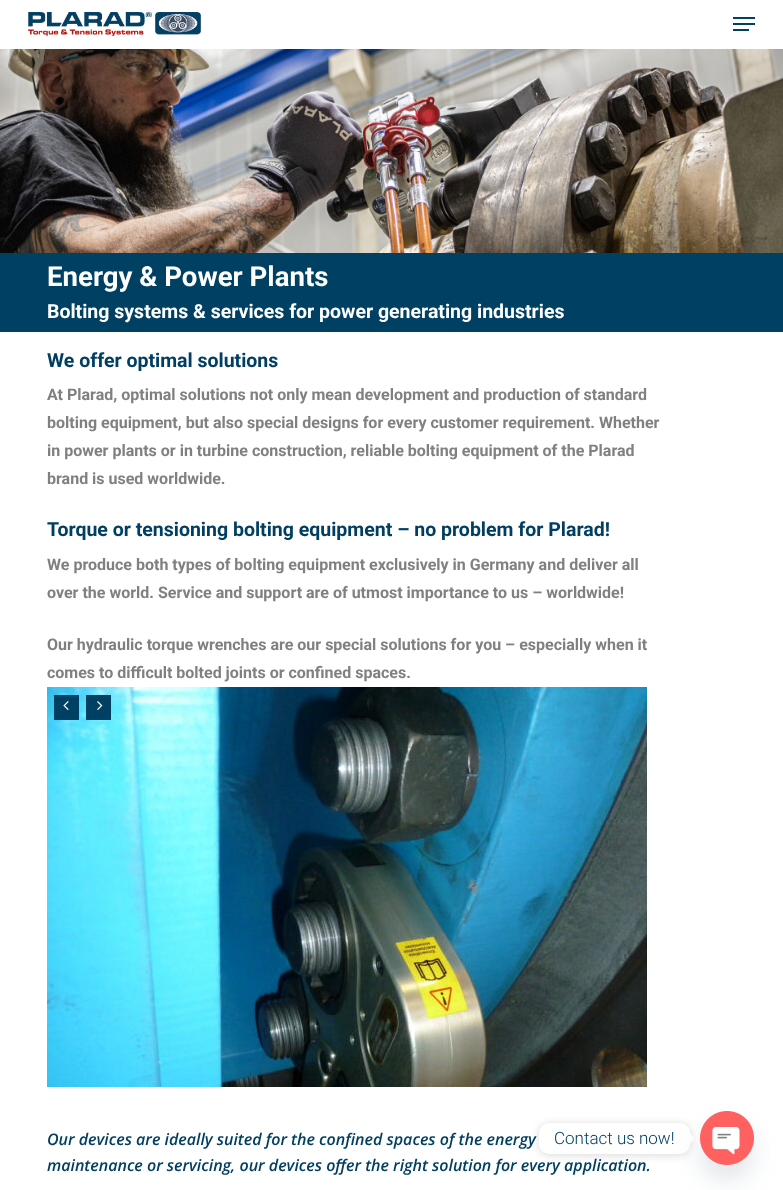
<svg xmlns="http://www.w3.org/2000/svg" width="783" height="1190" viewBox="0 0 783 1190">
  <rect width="100%" height="100%" fill="rgb(255,255,255)"/>
  <image x="28" y="12" width="173" height="24" href="pic1.png"/>
  <rect x="733" y="17" width="22" height="2" fill="rgb(0,64,99)"/>
  <rect x="733" y="29" width="16" height="2" fill="rgb(0,64,99)"/>
  <rect x="733" y="23" width="22" height="2" fill="rgb(0,64,99)"/>
  <image x="0" y="49" width="783" height="204" href="pic2.png"/>
  <rect x="0" y="253" width="783" height="79" fill="rgb(0,64,99)"/>
  <text x="47" y="286" font-family="Roboto" font-size="27.6" font-weight="bold" fill="rgb(255,255,255)">Energy &amp; Power Plants</text>
  <text x="47" y="318" font-family="Roboto" font-size="19.5" font-weight="bold" fill="rgb(255,255,255)">Bolting systems &amp; services for power generating industries</text>
  <text x="47" y="367" font-family="Roboto" font-size="19.5" font-weight="bold" fill="rgb(0,62,98)">We offer optimal solutions</text>
  <g font-family="Roboto" font-size="16" font-weight="bold" fill="rgb(128,128,128)">
    <text>
      <tspan x="47" y="400">At Plarad, optimal solutions not only mean development and production of standard</tspan>
      <tspan x="47" y="428">bolting equipment, but also special designs for every customer requirement. Whether</tspan>
      <tspan x="47" y="456">in power plants or in turbine construction, reliable bolting equipment of the Plarad</tspan>
      <tspan x="47" y="484">brand is used worldwide.</tspan>
    </text>
  </g>
  <text x="47" y="536" font-family="Roboto" font-size="19.5" font-weight="bold" fill="rgb(0,62,98)">Torque or tensioning bolting equipment – no problem for Plarad!</text>
  <g font-family="Roboto" font-size="16" font-weight="bold" fill="rgb(128,128,128)">
    <text>
      <tspan x="47" y="570">We produce both types of bolting equipment exclusively in Germany and deliver all</tspan>
      <tspan x="47" y="598">over the world. Service and support are of utmost importance to us – worldwide!</tspan>
    </text>
    <text>
      <tspan x="47" y="650">Our hydraulic torque wrenches are our special solutions for you – especially when it</tspan>
      <tspan x="47" y="678">comes to difficult bolted joints or confined spaces.</tspan>
    </text>
  </g>
  <image x="47" y="687" width="600" height="400" href="pic3.png"/>
  <rect x="54" y="695" width="25" height="25" fill="rgb(0,64,99)"/>
  <image x="63" y="701" width="6" height="9" href="pic4.png"/>
  <rect x="86" y="695" width="25" height="25" fill="rgb(0,64,99)"/>
  <image x="97" y="701" width="6" height="9" href="pic5.png"/>
  <g font-family="Open Sans" font-size="16" font-weight="600" font-style="italic" fill="rgb(0,62,98)">
    <text>
      <tspan x="47" y="1145">Our devices are ideally suited for the confined spaces of the energy</tspan>
      <tspan x="47" y="1171">maintenance or servicing, our devices offer the right solution for every application.</tspan>
    </text>
  </g>
  <rect x="539" y="1124" width="151" height="31" rx="10" fill="rgba(0,0,0,0.15)" filter="blur(4px)"/>
  <rect x="539" y="1123" width="151" height="31" rx="10" fill="rgb(255,255,255)"/>
  <text x="554" y="1144" font-family="Roboto" font-size="17" font-weight="300" fill="rgb(0,62,98)">Contact us now!</text>
  <path d="M690 1143.5V1133.5L695 1138.5Z" fill="rgb(255,255,255)"/>
  <rect x="700" y="1127" width="54" height="54" rx="27" fill="rgba(73,104,126,0.16)" filter="blur(12px)"/>
  <image x="700" y="1111" width="54" height="54" href="pic6.png"/>
</svg>
